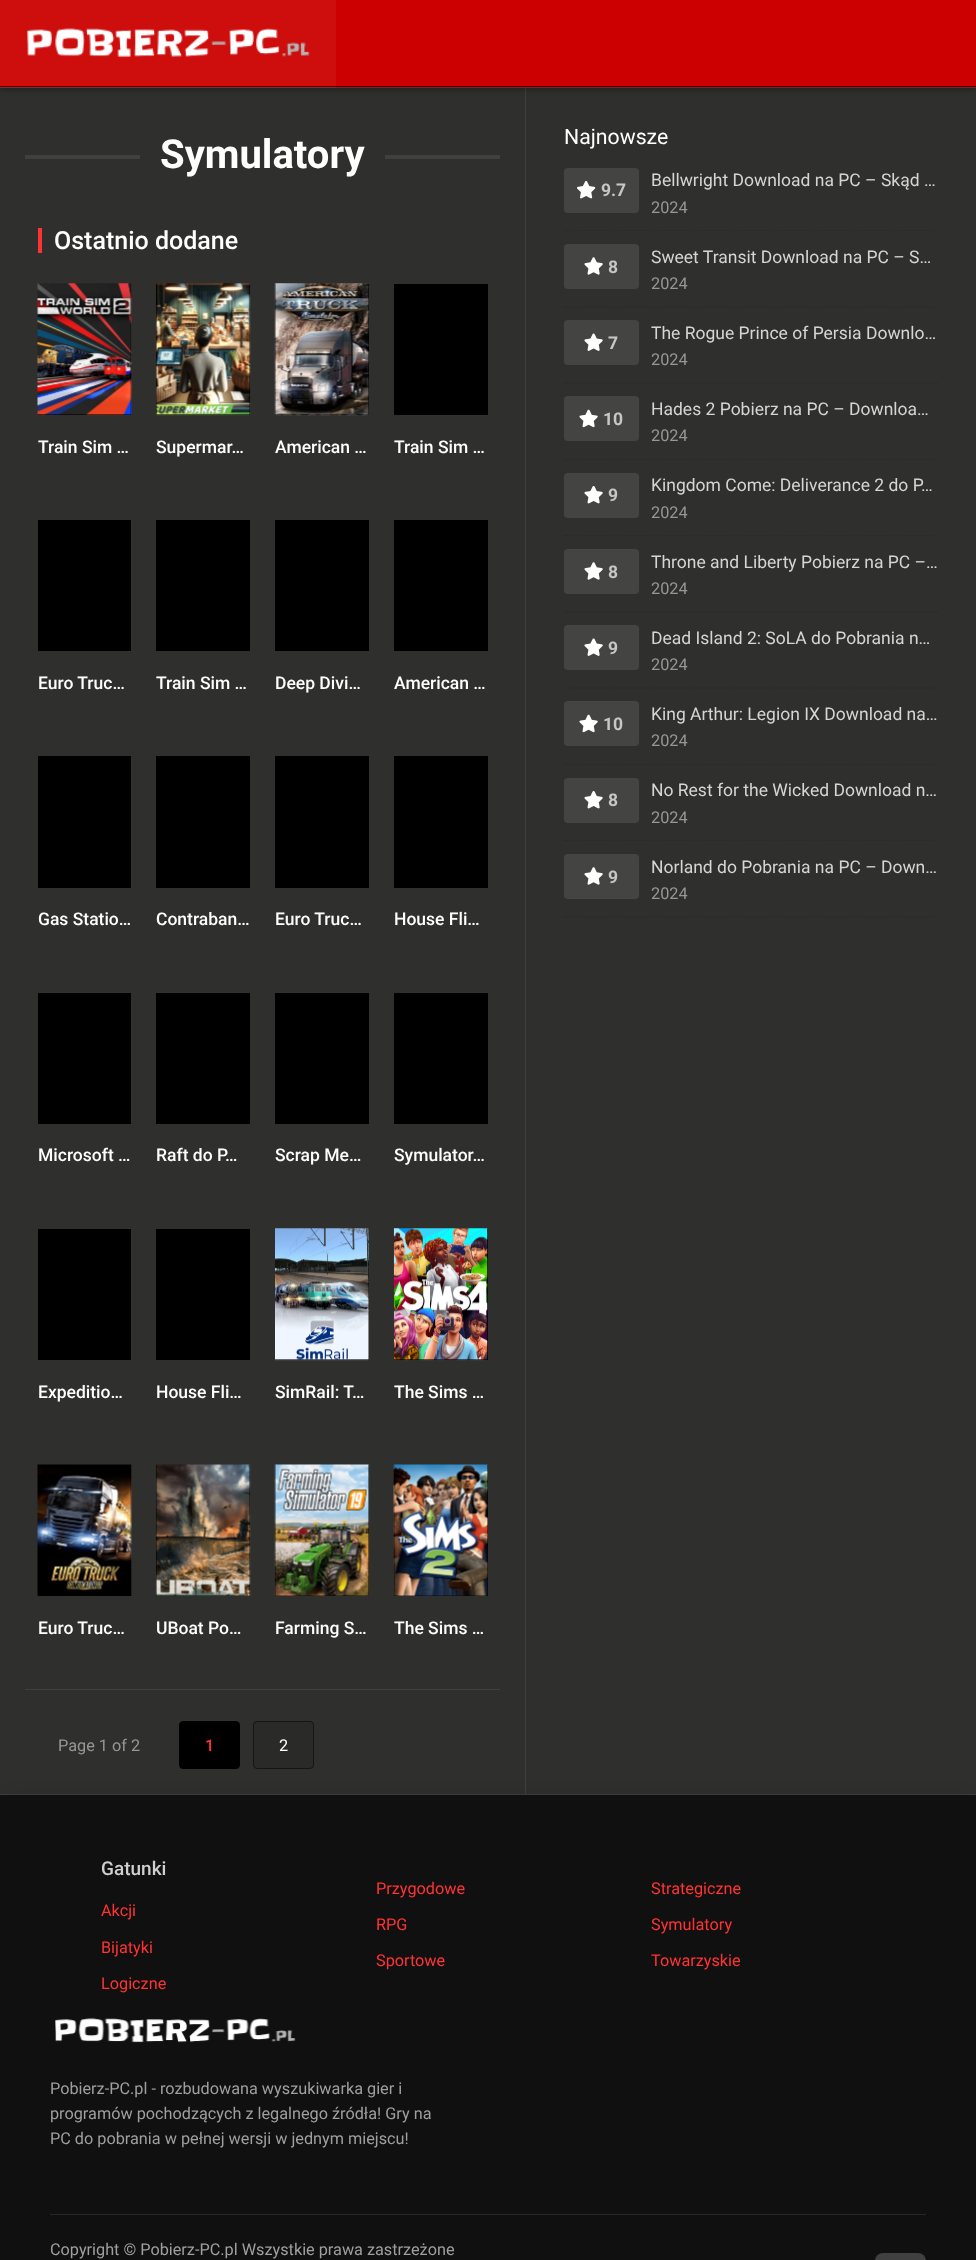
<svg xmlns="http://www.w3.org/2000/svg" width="976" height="2260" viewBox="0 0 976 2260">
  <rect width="100%" height="100%" fill="rgb(47,47,45)"/>
  <rect x="525" y="86" width="1" height="1708" fill="rgb(64,64,62)"/>
  <rect x="0" y="1" width="976" height="88" fill="rgba(0,0,0,0.4)" filter="blur(3px)"/>
  <rect x="0" y="0" width="976" height="88" fill="rgb(204,0,0)"/>
  <rect x="0" y="86" width="976" height="1" fill="rgb(0,0,0)"/>
  <rect x="0" y="0" width="336" height="88" fill="rgba(255,255,255,0.05)"/>
  <image x="27" y="28" width="283" height="30" href="pic1.png"/>
  <rect x="0" y="1794" width="976" height="1" fill="rgb(62,62,60)"/>
  <rect x="25" y="155" width="115" height="4" fill="rgb(64,64,62)"/>
  <text x="160" y="168" font-family="Roboto" font-size="40" font-weight="bold" fill="rgb(255,255,255)">Symulatory</text>
  <rect x="385" y="155" width="115" height="4" fill="rgb(64,64,62)"/>
  <rect x="38" y="228" width="4" height="25" fill="rgb(255,51,51)"/>
  <text x="54" y="249" font-family="Roboto" font-size="25" font-weight="500" fill="rgb(255,255,255)">Ostatnio dodane</text>
  <rect x="25" y="1689" width="475" height="1" fill="rgb(64,64,62)"/>
  <rect x="38" y="284" width="93" height="131" fill="rgb(0,0,0)"/>
  <image x="37" y="283" width="95" height="133" href="pic2.png"/>
  <text x="38" y="453" font-family="Roboto" font-size="17.5" font-weight="500" fill="rgb(255,255,255)">Train Sim …</text>
  <rect x="156" y="284" width="94" height="131" fill="rgb(0,0,0)"/>
  <image x="155" y="283" width="96" height="133" href="pic3.png"/>
  <text x="156" y="453" font-family="Roboto" font-size="17.5" font-weight="500" fill="rgb(255,255,255)">Supermar…</text>
  <rect x="275" y="284" width="94" height="131" fill="rgb(0,0,0)"/>
  <image x="274" y="283" width="95" height="133" href="pic4.png"/>
  <text x="275" y="453" font-family="Roboto" font-size="17.5" font-weight="500" fill="rgb(255,255,255)">American …</text>
  <rect x="394" y="284" width="94" height="131" fill="rgb(0,0,0)"/>
  <text x="394" y="453" font-family="Roboto" font-size="17.5" font-weight="500" fill="rgb(255,255,255)">Train Sim …</text>
  <rect x="38" y="520" width="93" height="131" fill="rgb(0,0,0)"/>
  <text x="38" y="689" font-family="Roboto" font-size="17.5" font-weight="500" fill="rgb(255,255,255)">Euro Truc…</text>
  <rect x="156" y="520" width="94" height="131" fill="rgb(0,0,0)"/>
  <text x="156" y="689" font-family="Roboto" font-size="17.5" font-weight="500" fill="rgb(255,255,255)">Train Sim …</text>
  <rect x="275" y="520" width="94" height="131" fill="rgb(0,0,0)"/>
  <text x="275" y="689" font-family="Roboto" font-size="17.5" font-weight="500" fill="rgb(255,255,255)">Deep Divi…</text>
  <rect x="394" y="520" width="94" height="131" fill="rgb(0,0,0)"/>
  <text x="394" y="689" font-family="Roboto" font-size="17.5" font-weight="500" fill="rgb(255,255,255)">American …</text>
  <rect x="38" y="756" width="93" height="132" fill="rgb(0,0,0)"/>
  <text x="38" y="925" font-family="Roboto" font-size="17.5" font-weight="500" fill="rgb(255,255,255)">Gas Statio…</text>
  <rect x="156" y="756" width="94" height="132" fill="rgb(0,0,0)"/>
  <text x="156" y="925" font-family="Roboto" font-size="17.5" font-weight="500" fill="rgb(255,255,255)">Contraban…</text>
  <rect x="275" y="756" width="94" height="132" fill="rgb(0,0,0)"/>
  <text x="275" y="925" font-family="Roboto" font-size="17.5" font-weight="500" fill="rgb(255,255,255)">Euro Truc…</text>
  <rect x="394" y="756" width="94" height="132" fill="rgb(0,0,0)"/>
  <text x="394" y="925" font-family="Roboto" font-size="17.5" font-weight="500" fill="rgb(255,255,255)">House Fli…</text>
  <rect x="38" y="993" width="93" height="131" fill="rgb(0,0,0)"/>
  <text x="38" y="1161" font-family="Roboto" font-size="17.5" font-weight="500" fill="rgb(255,255,255)">Microsoft …</text>
  <rect x="156" y="993" width="94" height="131" fill="rgb(0,0,0)"/>
  <text x="156" y="1161" font-family="Roboto" font-size="17.5" font-weight="500" fill="rgb(255,255,255)">Raft do P…</text>
  <rect x="275" y="993" width="94" height="131" fill="rgb(0,0,0)"/>
  <text x="275" y="1161" font-family="Roboto" font-size="17.5" font-weight="500" fill="rgb(255,255,255)">Scrap Me…</text>
  <rect x="394" y="993" width="94" height="131" fill="rgb(0,0,0)"/>
  <text x="394" y="1161" font-family="Roboto" font-size="17.5" font-weight="500" fill="rgb(255,255,255)">Symulator…</text>
  <rect x="38" y="1229" width="93" height="131" fill="rgb(0,0,0)"/>
  <text x="38" y="1398" font-family="Roboto" font-size="17.5" font-weight="500" fill="rgb(255,255,255)">Expeditio…</text>
  <rect x="156" y="1229" width="94" height="131" fill="rgb(0,0,0)"/>
  <text x="156" y="1398" font-family="Roboto" font-size="17.5" font-weight="500" fill="rgb(255,255,255)">House Fli…</text>
  <rect x="275" y="1229" width="94" height="131" fill="rgb(0,0,0)"/>
  <image x="275" y="1228" width="94" height="133" href="pic5.png"/>
  <text x="275" y="1398" font-family="Roboto" font-size="17.5" font-weight="500" fill="rgb(255,255,255)">SimRail: T…</text>
  <rect x="394" y="1229" width="94" height="131" fill="rgb(0,0,0)"/>
  <image x="393" y="1228" width="95" height="133" href="pic6.png"/>
  <text x="394" y="1398" font-family="Roboto" font-size="17.5" font-weight="500" fill="rgb(255,255,255)">The Sims …</text>
  <rect x="38" y="1465" width="93" height="131" fill="rgb(0,0,0)"/>
  <image x="37" y="1464" width="95" height="132" href="pic7.png"/>
  <text x="38" y="1634" font-family="Roboto" font-size="17.5" font-weight="500" fill="rgb(255,255,255)">Euro Truc…</text>
  <rect x="156" y="1465" width="94" height="131" fill="rgb(0,0,0)"/>
  <image x="155" y="1464" width="96" height="132" href="pic8.png"/>
  <text x="156" y="1634" font-family="Roboto" font-size="17.5" font-weight="500" fill="rgb(255,255,255)">UBoat Po…</text>
  <rect x="275" y="1465" width="94" height="131" fill="rgb(0,0,0)"/>
  <image x="274" y="1464" width="96" height="132" href="pic9.png"/>
  <text x="275" y="1634" font-family="Roboto" font-size="17.5" font-weight="500" fill="rgb(255,255,255)">Farming S…</text>
  <rect x="394" y="1465" width="94" height="131" fill="rgb(0,0,0)"/>
  <image x="393" y="1464" width="95" height="132" href="pic10.png"/>
  <text x="394" y="1634" font-family="Roboto" font-size="17.5" font-weight="500" fill="rgb(255,255,255)">The Sims …</text>
  <text x="58" y="1751" font-family="Roboto" font-size="16.25" fill="rgb(151,151,150)">Page 1 of 2</text>
  <rect x="179.5" y="1721.5" width="60" height="47" rx="3.5" fill="rgb(0,0,0)" stroke="rgb(0,0,0)"/>
  <text x="205" y="1751" font-family="Roboto" font-size="16.25" font-weight="500" fill="rgb(255,51,51)">1</text>
  <rect x="253.5" y="1721.5" width="60" height="47" rx="3.5" fill="rgb(42,42,41)" stroke="rgb(21,21,21)"/>
  <text x="279" y="1751" font-family="Roboto" font-size="16.25" fill="rgb(255,255,255)">2</text>
  <text x="564" y="144" font-family="Roboto" font-size="21.25" fill="rgb(255,255,255)">Najnowsze</text>
  <path d="M564 230.5H939" fill="none" stroke="rgb(42,42,41)" stroke-width="1.2" stroke-dasharray="1.25 1.25"/>
  <rect x="564" y="168" width="75" height="45" rx="4" fill="rgb(68,68,66)"/>
  <image x="577" y="181" width="19" height="18" href="pic11.png"/>
  <text x="601" y="196" font-family="Roboto" font-size="17.5" font-weight="bold" fill="rgb(199,199,198)">9.7</text>
  <text x="651" y="186" font-family="Roboto" font-size="17.5" fill="rgb(213,213,213)">Bellwright Download na PC – Skąd …</text>
  <text x="651" y="213" font-family="Roboto" font-size="16.25" fill="rgb(151,151,150)">2024</text>
  <path d="M564 307H939" fill="none" stroke="rgb(42,42,41)" stroke-width="1.2" stroke-dasharray="1.25 1.25"/>
  <rect x="564" y="244" width="75" height="45" rx="4" fill="rgb(68,68,66)"/>
  <image x="584" y="257" width="19" height="18" href="pic12.png"/>
  <text x="608" y="273" font-family="Roboto" font-size="17.5" font-weight="bold" fill="rgb(199,199,198)">8</text>
  <text x="651" y="263" font-family="Roboto" font-size="17.5" fill="rgb(213,213,213)">Sweet Transit Download na PC – S…</text>
  <text x="651" y="289" font-family="Roboto" font-size="16.25" fill="rgb(151,151,150)">2024</text>
  <path d="M564 383H939" fill="none" stroke="rgb(42,42,41)" stroke-width="1.2" stroke-dasharray="1.25 1.25"/>
  <rect x="564" y="320" width="75" height="45" rx="4" fill="rgb(68,68,66)"/>
  <image x="584" y="333" width="19" height="18" href="pic13.png"/>
  <text x="608" y="349" font-family="Roboto" font-size="17.5" font-weight="bold" fill="rgb(199,199,198)">7</text>
  <text x="651" y="339" font-family="Roboto" font-size="17.5" fill="rgb(213,213,213)">The Rogue Prince of Persia Downlo…</text>
  <text x="651" y="365" font-family="Roboto" font-size="16.25" fill="rgb(151,151,150)">2024</text>
  <path d="M564 459.5H939" fill="none" stroke="rgb(42,42,41)" stroke-width="1.2" stroke-dasharray="1.25 1.25"/>
  <rect x="564" y="396" width="75" height="45" rx="4" fill="rgb(68,68,66)"/>
  <image x="579" y="409" width="19" height="19" href="pic14.png"/>
  <text x="603" y="425" font-family="Roboto" font-size="17.5" font-weight="bold" fill="rgb(199,199,198)">10</text>
  <text x="651" y="415" font-family="Roboto" font-size="17.5" fill="rgb(213,213,213)">Hades 2 Pobierz na PC – Downloa…</text>
  <text x="651" y="441" font-family="Roboto" font-size="16.25" fill="rgb(151,151,150)">2024</text>
  <path d="M564 535.5H939" fill="none" stroke="rgb(42,42,41)" stroke-width="1.2" stroke-dasharray="1.25 1.25"/>
  <rect x="564" y="473" width="75" height="45" rx="4" fill="rgb(68,68,66)"/>
  <image x="584" y="486" width="19" height="18" href="pic15.png"/>
  <text x="608" y="501" font-family="Roboto" font-size="17.5" font-weight="bold" fill="rgb(199,199,198)">9</text>
  <text x="651" y="491" font-family="Roboto" font-size="17.5" fill="rgb(213,213,213)">Kingdom Come: Deliverance 2 do P…</text>
  <text x="651" y="518" font-family="Roboto" font-size="16.25" fill="rgb(151,151,150)">2024</text>
  <path d="M564 612H939" fill="none" stroke="rgb(42,42,41)" stroke-width="1.2" stroke-dasharray="1.25 1.25"/>
  <rect x="564" y="549" width="75" height="45" rx="4" fill="rgb(68,68,66)"/>
  <image x="584" y="562" width="19" height="18" href="pic12.png"/>
  <text x="608" y="578" font-family="Roboto" font-size="17.5" font-weight="bold" fill="rgb(199,199,198)">8</text>
  <text x="651" y="568" font-family="Roboto" font-size="17.5" fill="rgb(213,213,213)">Throne and Liberty Pobierz na PC –…</text>
  <text x="651" y="594" font-family="Roboto" font-size="16.25" fill="rgb(151,151,150)">2024</text>
  <path d="M564 688H939" fill="none" stroke="rgb(42,42,41)" stroke-width="1.2" stroke-dasharray="1.25 1.25"/>
  <rect x="564" y="625" width="75" height="45" rx="4" fill="rgb(68,68,66)"/>
  <image x="584" y="638" width="19" height="18" href="pic13.png"/>
  <text x="608" y="654" font-family="Roboto" font-size="17.5" font-weight="bold" fill="rgb(199,199,198)">9</text>
  <text x="651" y="644" font-family="Roboto" font-size="17.5" fill="rgb(213,213,213)">Dead Island 2: SoLA do Pobrania n…</text>
  <text x="651" y="670" font-family="Roboto" font-size="16.25" fill="rgb(151,151,150)">2024</text>
  <path d="M564 764.5H939" fill="none" stroke="rgb(42,42,41)" stroke-width="1.2" stroke-dasharray="1.25 1.25"/>
  <rect x="564" y="701" width="75" height="45" rx="4" fill="rgb(68,68,66)"/>
  <image x="579" y="714" width="19" height="19" href="pic14.png"/>
  <text x="603" y="730" font-family="Roboto" font-size="17.5" font-weight="bold" fill="rgb(199,199,198)">10</text>
  <text x="651" y="720" font-family="Roboto" font-size="17.5" fill="rgb(213,213,213)">King Arthur: Legion IX Download na…</text>
  <text x="651" y="746" font-family="Roboto" font-size="16.25" fill="rgb(151,151,150)">2024</text>
  <path d="M564 840.5H939" fill="none" stroke="rgb(42,42,41)" stroke-width="1.2" stroke-dasharray="1.25 1.25"/>
  <rect x="564" y="778" width="75" height="45" rx="4" fill="rgb(68,68,66)"/>
  <image x="584" y="791" width="19" height="18" href="pic15.png"/>
  <text x="608" y="806" font-family="Roboto" font-size="17.5" font-weight="bold" fill="rgb(199,199,198)">8</text>
  <text x="651" y="796" font-family="Roboto" font-size="17.5" fill="rgb(213,213,213)">No Rest for the Wicked Download n…</text>
  <text x="651" y="823" font-family="Roboto" font-size="16.25" fill="rgb(151,151,150)">2024</text>
  <path d="M564 917H939" fill="none" stroke="rgb(42,42,41)" stroke-width="1.2" stroke-dasharray="1.25 1.25"/>
  <rect x="564" y="854" width="75" height="45" rx="4" fill="rgb(68,68,66)"/>
  <image x="584" y="867" width="19" height="18" href="pic12.png"/>
  <text x="608" y="883" font-family="Roboto" font-size="17.5" font-weight="bold" fill="rgb(199,199,198)">9</text>
  <text x="651" y="873" font-family="Roboto" font-size="17.5" fill="rgb(213,213,213)">Norland do Pobrania na PC – Down…</text>
  <text x="651" y="899" font-family="Roboto" font-size="16.25" fill="rgb(151,151,150)">2024</text>
  <rect x="9" y="1816" width="959" height="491" fill="rgba(0,0,0,0.7)" filter="blur(15.5px)"/>
  <rect x="0" y="1795" width="976" height="465" fill="rgb(16,16,17)"/>
  <rect x="50" y="2214" width="876" height="1" fill="rgb(40,40,41)"/>
  <text x="101" y="1875" font-family="Roboto" font-size="19" font-weight="500" fill="rgb(207,207,207)">Gatunki</text>
  <g font-family="Roboto" font-size="16.25" fill="rgb(255,51,51)">
    <text x="101" y="1916">Akcji</text>
    <text x="101" y="1953">Bijatyki</text>
    <text x="101" y="1989">Logiczne</text>
    <text x="376" y="1894">Przygodowe</text>
    <text x="376" y="1930">RPG</text>
    <text x="376" y="1966">Sportowe</text>
    <text x="651" y="1894">Strategiczne</text>
    <text x="651" y="1930">Symulatory</text>
    <text x="651" y="1966">Towarzyskie</text>
  </g>
  <image x="55" y="2018" width="241" height="25" href="pic16.png"/>
  <g font-family="Roboto" font-size="16.25" fill="rgb(159,159,160)">
    <text>
      <tspan x="50" y="2094">Pobierz-PC.pl - rozbudowana wyszukiwarka gier i</tspan>
      <tspan x="50" y="2119">programów pochodzących z legalnego źródła! Gry na</tspan>
      <tspan x="50" y="2144">PC do pobrania w pełnej wersji w jednym miejscu!</tspan>
    </text>
    <text x="50" y="2255">Copyright © Pobierz-PC.pl Wszystkie prawa zastrzeżone</text>
  </g>
  <rect x="875" y="2253" width="51" height="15" rx="8" fill="rgb(64,64,65)"/>
</svg>
